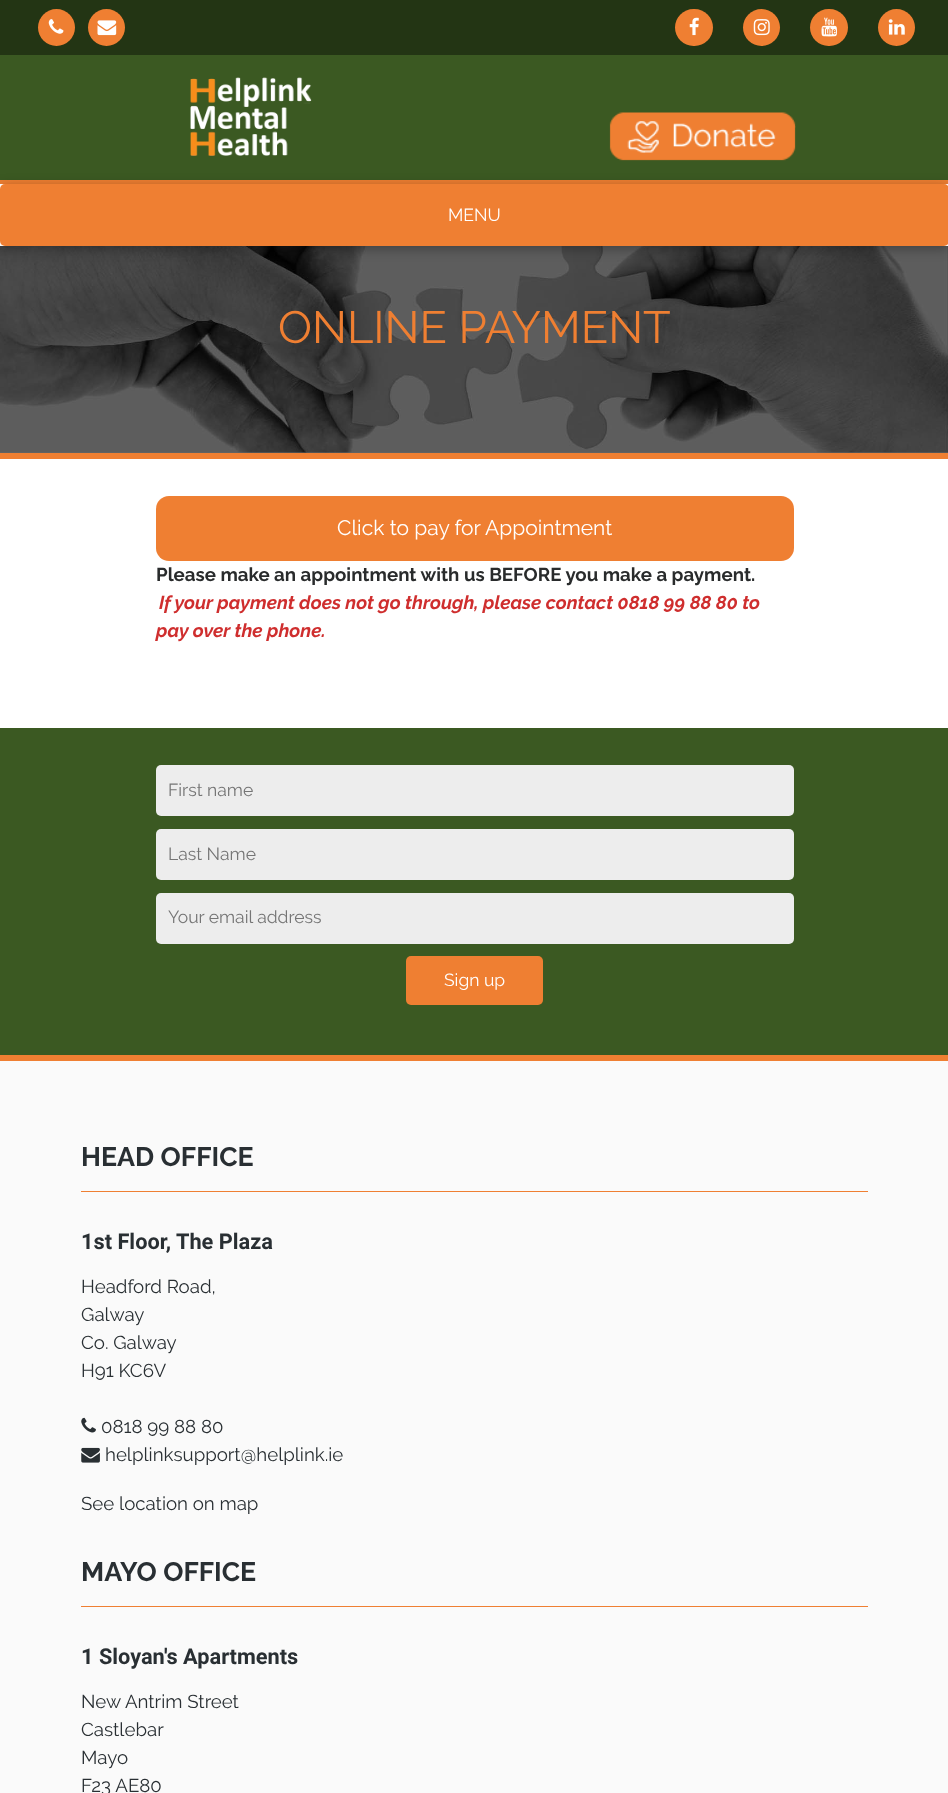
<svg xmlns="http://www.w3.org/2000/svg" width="948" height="1793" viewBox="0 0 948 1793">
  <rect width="100%" height="100%" fill="rgb(255,255,255)"/>
  <rect x="0" y="452" width="948" height="1" fill="rgb(102,102,102)"/>
  <rect x="0" y="55" width="948" height="125" fill="rgb(59,89,34)"/>
  <rect x="0" y="0" width="948" height="55" fill="rgb(35,53,20)"/>
  <circle cx="56.5" cy="27.5" r="18.5" fill="rgb(239,127,50)"/>
  <image x="48" y="19" width="16" height="15" href="pic1.png"/>
  <circle cx="106.5" cy="27.5" r="18.5" fill="rgb(239,127,50)"/>
  <image x="97" y="20" width="20" height="16" href="pic2.png"/>
  <rect x="675" y="9" width="38" height="37" rx="18.5" fill="rgb(239,127,50)"/>
  <image x="689" y="17" width="10" height="19" href="pic3.png"/>
  <circle cx="761.5" cy="27.5" r="18.5" fill="rgb(239,127,50)"/>
  <image x="753" y="19" width="17" height="17" href="pic4.png"/>
  <rect x="810" y="9" width="38" height="37" rx="18.5" fill="rgb(239,127,50)"/>
  <image x="821" y="17" width="16" height="20" href="pic5.png"/>
  <circle cx="896.5" cy="27.5" r="18.5" fill="rgb(239,127,50)"/>
  <image x="888" y="19" width="17" height="16" href="pic6.png"/>
  <rect x="0" y="180" width="948" height="4" fill="rgb(239,127,50)"/>
  <image x="190" y="77" width="122" height="79" href="pic7.png"/>
  <image x="609" y="112" width="187" height="49" href="pic8.png"/>
  <image x="0" y="246" width="948" height="207" href="pic9.png"/>
  <rect x="0" y="186" width="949" height="63" fill="rgba(0,0,0,0.3)" filter="blur(6px)"/>
  <rect x="0" y="184" width="948" height="62" fill="rgb(250,250,250)"/>
  <rect x="0" y="184" width="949" height="62" rx="5" fill="rgb(239,127,50)"/>
  <text x="448" y="221" font-family="Raleway" font-size="17.5" fill="rgb(255,255,255)">MENU</text>
  <rect x="0" y="453" width="948" height="6" fill="rgb(239,127,50)"/>
  <text x="278" y="343" font-family="Raleway" font-size="45.25" fill="rgb(239,127,50)">ONLINE PAYMENT</text>
  <rect x="156" y="496" width="638" height="65" rx="13" fill="rgb(239,127,50)"/>
  <text x="337" y="535" font-family="Raleway" font-size="21" fill="rgb(255,255,255)">Click to pay for Appointment</text>
  <text x="156" y="581" font-family="Raleway" font-size="18.7" font-weight="bold" fill="rgb(41,43,44)">Please make an appointment with us BEFORE you make a payment.</text>
  <g font-family="Raleway" font-size="18.7" font-weight="bold" font-style="italic" fill="rgb(207,46,46)">
    <text x="159" y="609">If your payment does not go through, please contact 0818 99 88 80 to</text>
    <text x="156" y="637">pay over the phone.</text>
  </g>
  <rect x="0" y="728" width="948" height="327" fill="rgb(59,89,34)"/>
  <rect x="156" y="765" width="638" height="51" rx="5" fill="rgb(237,237,237)"/>
  <text x="168" y="796" font-family="Raleway" font-size="17.5" fill="rgb(117,117,117)">First name</text>
  <rect x="156" y="829" width="638" height="51" rx="5" fill="rgb(237,237,237)"/>
  <text x="168" y="860" font-family="Raleway" font-size="17.5" fill="rgb(117,117,117)">Last Name</text>
  <rect x="156" y="893" width="638" height="51" rx="5" fill="rgb(237,237,237)"/>
  <text x="168" y="923" font-family="Raleway" font-size="17.5" fill="rgb(117,117,117)">Your email address</text>
  <rect x="406" y="956" width="137" height="49" rx="5" fill="rgb(239,127,50)"/>
  <text x="444" y="986" font-family="Raleway" font-size="17.5" fill="rgb(255,255,255)">Sign up</text>
  <rect x="0" y="1061" width="948" height="732" fill="rgb(250,250,250)"/>
  <rect x="0" y="1055" width="948" height="6" fill="rgb(239,127,50)"/>
  <text x="81" y="1166" font-family="Raleway" font-size="26.75" font-weight="bold" fill="rgb(41,47,51)">HEAD OFFICE</text>
  <rect x="81" y="1191" width="787" height="1" fill="rgb(239,127,50)"/>
  <text x="81" y="1249" font-family="Roboto" font-size="21.75" font-weight="bold" fill="rgb(41,47,51)">1st Floor, The Plaza</text>
  <g font-family="Raleway" font-size="18.7" fill="rgb(41,47,51)">
    <text>
      <tspan x="81" y="1293">Headford Road,</tspan>
      <tspan x="81" y="1321">Galway</tspan>
      <tspan x="81" y="1349">Co. Galway</tspan>
      <tspan x="81" y="1377">H91 KC6V</tspan>
    </text>
  </g>
  <image x="81" y="1417" width="15" height="16" href="pic10.png"/>
  <text x="101" y="1433" font-family="Raleway" font-size="18.7" fill="rgb(41,47,51)">0818 99 88 80</text>
  <image x="81" y="1447" width="19" height="16" href="pic11.png"/>
  <g font-family="Raleway" font-size="18.7" fill="rgb(41,47,51)">
    <text x="105" y="1461">helplinksupport@helplink.ie</text>
    <text x="81" y="1510">See location on map</text>
  </g>
  <text x="81" y="1581" font-family="Raleway" font-size="26.75" font-weight="bold" fill="rgb(41,47,51)">MAYO OFFICE</text>
  <rect x="81" y="1606" width="787" height="1" fill="rgb(239,127,50)"/>
  <text x="81" y="1664" font-family="Roboto" font-size="21.75" font-weight="bold" fill="rgb(41,47,51)">1 Sloyan's Apartments</text>
  <g font-family="Raleway" font-size="18.7" fill="rgb(41,47,51)">
    <text>
      <tspan x="81" y="1708">New Antrim Street</tspan>
      <tspan x="81" y="1736">Castlebar</tspan>
      <tspan x="81" y="1764">Mayo</tspan>
      <tspan x="81" y="1792">F23 AE80</tspan>
    </text>
  </g>
</svg>
